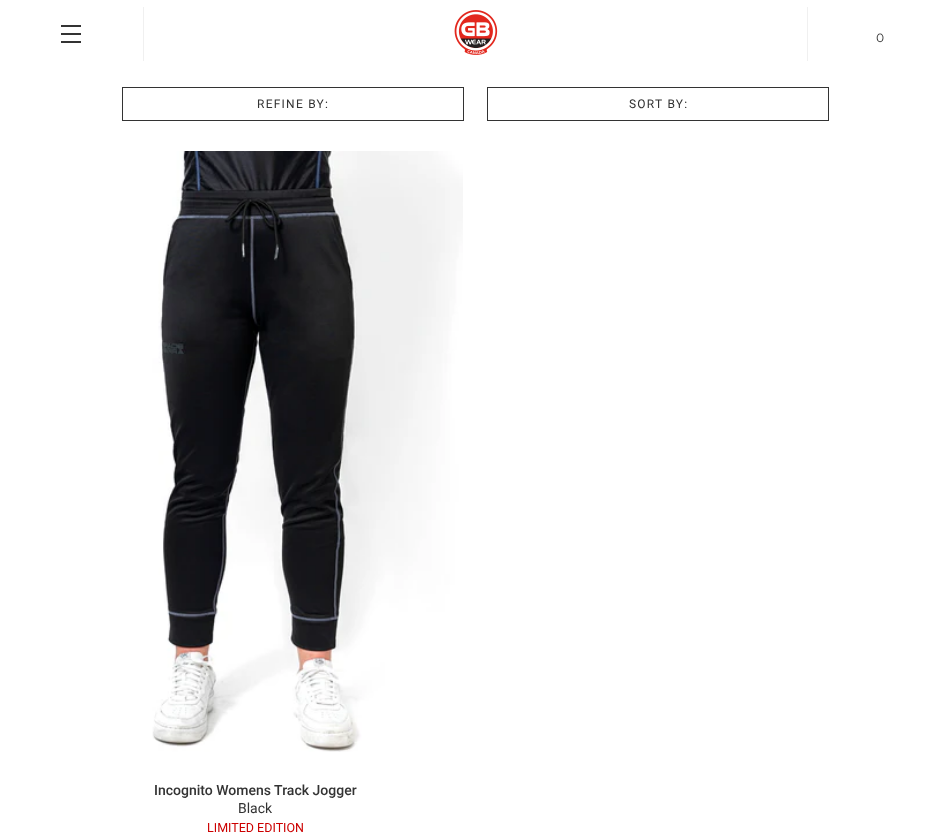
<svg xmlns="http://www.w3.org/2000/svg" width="951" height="834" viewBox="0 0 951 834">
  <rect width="100%" height="100%" fill="rgb(255,255,255)"/>
  <rect x="61" y="25" width="20" height="2" fill="rgb(51,51,51)"/>
  <rect x="61" y="33" width="20" height="2" fill="rgb(51,51,51)"/>
  <rect x="61" y="41" width="20" height="2" fill="rgb(51,51,51)"/>
  <rect x="807" y="7" width="1" height="54" fill="rgb(240,240,240)"/>
  <rect x="143" y="7" width="1" height="54" fill="rgb(240,240,240)"/>
  <image x="454" y="10" width="44" height="45" href="pic1.png"/>
  <text x="876" y="42" font-family="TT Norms" font-size="12" fill="rgb(51,51,51)">0</text>
  <rect x="122.5" y="87.5" width="341" height="33" fill="none" stroke="rgb(51,51,51)"/>
  <text x="257" y="108" font-family="Roboto" font-size="12" letter-spacing="1.25" fill="rgb(51,51,51)">REFINE BY:</text>
  <rect x="487.5" y="87.5" width="341" height="33" fill="none" stroke="rgb(51,51,51)"/>
  <text x="629" y="108" font-family="Roboto" font-size="12" letter-spacing="1.25" fill="rgb(51,51,51)">SORT BY:</text>
  <image x="152" y="151" width="311" height="601" href="pic2.png"/>
  <text x="154" y="795" font-family="Roboto" font-size="14" font-weight="500" fill="rgb(51,51,51)">Incognito Womens Track Jogger</text>
  <text x="238" y="813" font-family="Roboto" font-size="14" fill="rgb(51,51,51)">Black</text>
  <text x="207" y="832" font-family="Roboto" font-size="12.5" fill="rgb(204,0,0)">LIMITED EDITION</text>
</svg>
